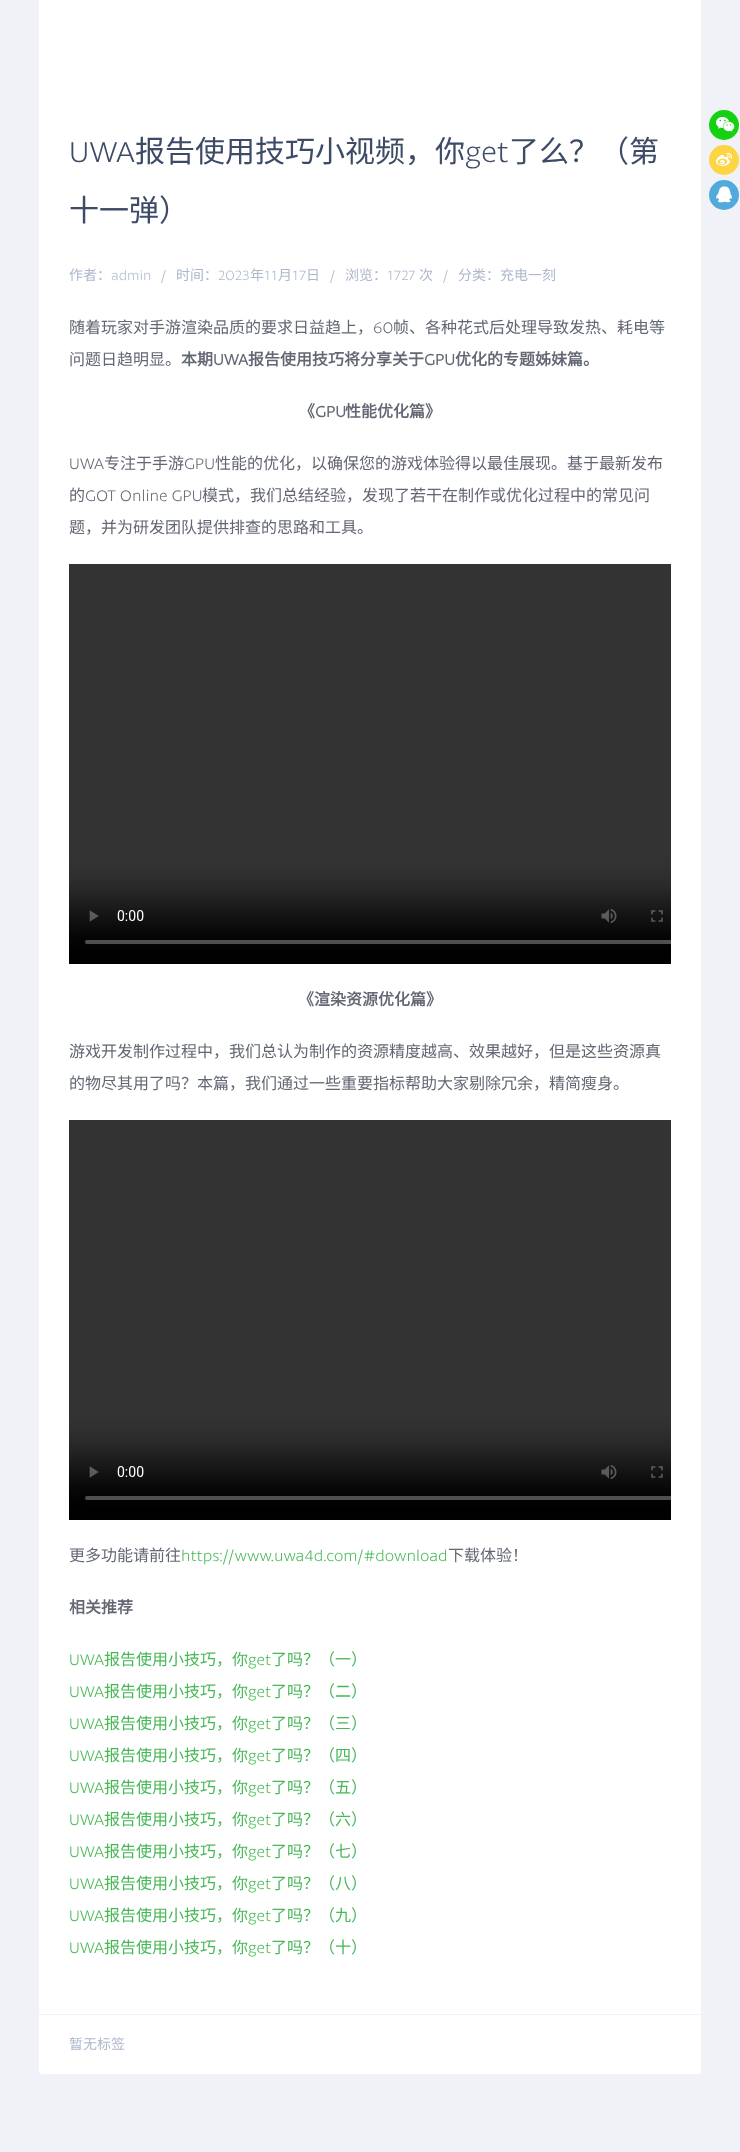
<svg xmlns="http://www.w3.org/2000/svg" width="740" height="2152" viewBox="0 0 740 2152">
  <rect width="100%" height="100%" fill="rgb(240,242,247)"/>
  <rect x="39" y="-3" width="662" height="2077" rx="3" fill="rgb(255,255,255)"/>
  <text x="69" y="162" font-family="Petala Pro" font-size="30" font-weight="300" fill="rgb(61,75,102)">UWA</text>
  <text x="135" y="162" font-family="Noto Sans CJK SC" font-size="30" fill="rgb(61,75,102)">报告使用技巧小视频，你</text>
  <text x="465" y="162" font-family="Petala Pro" font-size="30" font-weight="300" fill="rgb(61,75,102)">get</text>
  <g font-family="Noto Sans CJK SC" font-size="30" fill="rgb(61,75,102)">
    <text x="509" y="162">了么？（第</text>
    <text x="69" y="221">十一弹）</text>
  </g>
  <text x="69" y="280" font-family="Noto Sans CJK SC" font-size="14" fill="rgb(173,184,204)">作者：</text>
  <g font-family="Petala Pro" font-size="14" font-weight="300" fill="rgb(173,184,204)">
    <text x="111" y="280">admin</text>
    <text x="161" y="280">/</text>
  </g>
  <text x="176" y="280" font-family="Noto Sans CJK SC" font-size="14" fill="rgb(173,184,204)">时间：</text>
  <text x="218" y="280" font-family="Petala Pro" font-size="14" font-weight="300" fill="rgb(173,184,204)">2023</text>
  <text x="250" y="280" font-family="Noto Sans CJK SC" font-size="14" fill="rgb(173,184,204)">年</text>
  <text x="264" y="280" font-family="Petala Pro" font-size="14" font-weight="300" fill="rgb(173,184,204)">11</text>
  <text x="278" y="280" font-family="Noto Sans CJK SC" font-size="14" fill="rgb(173,184,204)">月</text>
  <text x="292" y="280" font-family="Petala Pro" font-size="14" font-weight="300" fill="rgb(173,184,204)">17</text>
  <text x="306" y="280" font-family="Noto Sans CJK SC" font-size="14" fill="rgb(173,184,204)">日</text>
  <text x="330" y="280" font-family="Petala Pro" font-size="14" font-weight="300" fill="rgb(173,184,204)">/</text>
  <text x="345" y="280" font-family="Noto Sans CJK SC" font-size="14" fill="rgb(173,184,204)">浏览：</text>
  <text x="387" y="280" font-family="Petala Pro" font-size="14" font-weight="300" fill="rgb(173,184,204)">1727</text>
  <text x="419" y="280" font-family="Noto Sans CJK SC" font-size="14" fill="rgb(173,184,204)">次</text>
  <text x="443" y="280" font-family="Petala Pro" font-size="14" font-weight="300" fill="rgb(173,184,204)">/</text>
  <text x="458" y="280" font-family="Noto Sans CJK SC" font-size="14" fill="rgb(173,184,204)">分类：充电一刻</text>
  <text x="69" y="333" font-family="Noto Sans CJK SC" font-size="16" fill="rgb(98,103,115)">随着玩家对手游渲染品质的要求日益趋上，</text>
  <text x="373" y="333" font-family="Petala Pro" font-size="16" font-weight="300" fill="rgb(98,103,115)">60</text>
  <g font-family="Noto Sans CJK SC" font-size="16" fill="rgb(98,103,115)">
    <text x="393" y="333">帧、各种花式后处理导致发热、耗电等</text>
    <text x="69" y="365">问题日趋明显。</text>
  </g>
  <text x="181" y="365" font-family="Noto Sans CJK SC" font-size="16" font-weight="bold" fill="rgb(98,103,115)">本期</text>
  <text x="213" y="365" font-family="Petala Pro" font-size="16" font-weight="bold" fill="rgb(98,103,115)">UWA</text>
  <text x="248" y="365" font-family="Noto Sans CJK SC" font-size="16" font-weight="bold" fill="rgb(98,103,115)">报告使用技巧将分享关于</text>
  <text x="424" y="365" font-family="Petala Pro" font-size="16" font-weight="bold" fill="rgb(98,103,115)">GPU</text>
  <g font-family="Noto Sans CJK SC" font-size="16" font-weight="bold" fill="rgb(98,103,115)">
    <text x="455" y="365">优化的专题姊妹篇。</text>
    <text x="299" y="417">《</text>
  </g>
  <text x="315" y="417" font-family="Petala Pro" font-size="16" font-weight="bold" fill="rgb(98,103,115)">GPU</text>
  <text x="345" y="417" font-family="Noto Sans CJK SC" font-size="16" font-weight="bold" fill="rgb(98,103,115)">性能优化篇》</text>
  <text x="69" y="469" font-family="Petala Pro" font-size="16" font-weight="300" fill="rgb(98,103,115)">UWA</text>
  <text x="104" y="469" font-family="Noto Sans CJK SC" font-size="16" fill="rgb(98,103,115)">专注于手游</text>
  <text x="184" y="469" font-family="Petala Pro" font-size="16" font-weight="300" fill="rgb(98,103,115)">GPU</text>
  <g font-family="Noto Sans CJK SC" font-size="16" fill="rgb(98,103,115)">
    <text x="215" y="469">性能的优化，以确保您的游戏体验得以最佳展现。基于最新发布</text>
    <text x="69" y="501">的</text>
  </g>
  <text x="85" y="501" font-family="Petala Pro" font-size="16" font-weight="300" fill="rgb(98,103,115)">GOT Online GPU</text>
  <g font-family="Noto Sans CJK SC" font-size="16" fill="rgb(98,103,115)">
    <text x="202" y="501">模式，我们总结经验，发现了若干在制作或优化过程中的常见问</text>
    <text x="69" y="533">题，并为研发团队提供排查的思路和工具。</text>
  </g>
  <image x="69" y="564" width="602" height="400" href="pic1.png"/>
  <text x="298" y="1005" font-family="Noto Sans CJK SC" font-size="16" font-weight="bold" fill="rgb(98,103,115)">《渲染资源优化篇》</text>
  <g font-family="Noto Sans CJK SC" font-size="16" fill="rgb(98,103,115)">
    <text x="69" y="1057">游戏开发制作过程中，我们总认为制作的资源精度越高、效果越好，但是这些资源真</text>
    <text x="69" y="1089">的物尽其用了吗？本篇，我们通过一些重要指标帮助大家剔除冗余，精简瘦身。</text>
  </g>
  <image x="69" y="1120" width="602" height="400" href="pic2.png"/>
  <text x="69" y="1561" font-family="Noto Sans CJK SC" font-size="16" fill="rgb(98,103,115)">更多功能请前往</text>
  <text x="181" y="1561" font-family="Petala Pro" font-size="16" font-weight="300" fill="rgb(70,184,85)">https://www.uwa4d.com/#download</text>
  <text x="448" y="1561" font-family="Noto Sans CJK SC" font-size="16" fill="rgb(98,103,115)">下载体验！</text>
  <text x="69" y="1613" font-family="Noto Sans CJK SC" font-size="16" font-weight="bold" fill="rgb(98,103,115)">相关推荐</text>
  <text x="69" y="1665" font-family="Petala Pro" font-size="16" font-weight="300" fill="rgb(70,184,85)">UWA</text>
  <text x="104" y="1665" font-family="Noto Sans CJK SC" font-size="16" fill="rgb(70,184,85)">报告使用小技巧，你</text>
  <text x="248" y="1665" font-family="Petala Pro" font-size="16" font-weight="300" fill="rgb(70,184,85)">get</text>
  <text x="271" y="1665" font-family="Noto Sans CJK SC" font-size="16" fill="rgb(70,184,85)">了吗？（一）</text>
  <text x="69" y="1697" font-family="Petala Pro" font-size="16" font-weight="300" fill="rgb(70,184,85)">UWA</text>
  <text x="104" y="1697" font-family="Noto Sans CJK SC" font-size="16" fill="rgb(70,184,85)">报告使用小技巧，你</text>
  <text x="248" y="1697" font-family="Petala Pro" font-size="16" font-weight="300" fill="rgb(70,184,85)">get</text>
  <text x="271" y="1697" font-family="Noto Sans CJK SC" font-size="16" fill="rgb(70,184,85)">了吗？（二）</text>
  <text x="69" y="1729" font-family="Petala Pro" font-size="16" font-weight="300" fill="rgb(70,184,85)">UWA</text>
  <text x="104" y="1729" font-family="Noto Sans CJK SC" font-size="16" fill="rgb(70,184,85)">报告使用小技巧，你</text>
  <text x="248" y="1729" font-family="Petala Pro" font-size="16" font-weight="300" fill="rgb(70,184,85)">get</text>
  <text x="271" y="1729" font-family="Noto Sans CJK SC" font-size="16" fill="rgb(70,184,85)">了吗？（三）</text>
  <text x="69" y="1761" font-family="Petala Pro" font-size="16" font-weight="300" fill="rgb(70,184,85)">UWA</text>
  <text x="104" y="1761" font-family="Noto Sans CJK SC" font-size="16" fill="rgb(70,184,85)">报告使用小技巧，你</text>
  <text x="248" y="1761" font-family="Petala Pro" font-size="16" font-weight="300" fill="rgb(70,184,85)">get</text>
  <text x="271" y="1761" font-family="Noto Sans CJK SC" font-size="16" fill="rgb(70,184,85)">了吗？（四）</text>
  <text x="69" y="1793" font-family="Petala Pro" font-size="16" font-weight="300" fill="rgb(70,184,85)">UWA</text>
  <text x="104" y="1793" font-family="Noto Sans CJK SC" font-size="16" fill="rgb(70,184,85)">报告使用小技巧，你</text>
  <text x="248" y="1793" font-family="Petala Pro" font-size="16" font-weight="300" fill="rgb(70,184,85)">get</text>
  <text x="271" y="1793" font-family="Noto Sans CJK SC" font-size="16" fill="rgb(70,184,85)">了吗？（五）</text>
  <text x="69" y="1825" font-family="Petala Pro" font-size="16" font-weight="300" fill="rgb(70,184,85)">UWA</text>
  <text x="104" y="1825" font-family="Noto Sans CJK SC" font-size="16" fill="rgb(70,184,85)">报告使用小技巧，你</text>
  <text x="248" y="1825" font-family="Petala Pro" font-size="16" font-weight="300" fill="rgb(70,184,85)">get</text>
  <text x="271" y="1825" font-family="Noto Sans CJK SC" font-size="16" fill="rgb(70,184,85)">了吗？（六）</text>
  <text x="69" y="1857" font-family="Petala Pro" font-size="16" font-weight="300" fill="rgb(70,184,85)">UWA</text>
  <text x="104" y="1857" font-family="Noto Sans CJK SC" font-size="16" fill="rgb(70,184,85)">报告使用小技巧，你</text>
  <text x="248" y="1857" font-family="Petala Pro" font-size="16" font-weight="300" fill="rgb(70,184,85)">get</text>
  <text x="271" y="1857" font-family="Noto Sans CJK SC" font-size="16" fill="rgb(70,184,85)">了吗？（七）</text>
  <text x="69" y="1889" font-family="Petala Pro" font-size="16" font-weight="300" fill="rgb(70,184,85)">UWA</text>
  <text x="104" y="1889" font-family="Noto Sans CJK SC" font-size="16" fill="rgb(70,184,85)">报告使用小技巧，你</text>
  <text x="248" y="1889" font-family="Petala Pro" font-size="16" font-weight="300" fill="rgb(70,184,85)">get</text>
  <text x="271" y="1889" font-family="Noto Sans CJK SC" font-size="16" fill="rgb(70,184,85)">了吗？（八）</text>
  <text x="69" y="1921" font-family="Petala Pro" font-size="16" font-weight="300" fill="rgb(70,184,85)">UWA</text>
  <text x="104" y="1921" font-family="Noto Sans CJK SC" font-size="16" fill="rgb(70,184,85)">报告使用小技巧，你</text>
  <text x="248" y="1921" font-family="Petala Pro" font-size="16" font-weight="300" fill="rgb(70,184,85)">get</text>
  <text x="271" y="1921" font-family="Noto Sans CJK SC" font-size="16" fill="rgb(70,184,85)">了吗？（九）</text>
  <text x="69" y="1953" font-family="Petala Pro" font-size="16" font-weight="300" fill="rgb(70,184,85)">UWA</text>
  <text x="104" y="1953" font-family="Noto Sans CJK SC" font-size="16" fill="rgb(70,184,85)">报告使用小技巧，你</text>
  <text x="248" y="1953" font-family="Petala Pro" font-size="16" font-weight="300" fill="rgb(70,184,85)">get</text>
  <text x="271" y="1953" font-family="Noto Sans CJK SC" font-size="16" fill="rgb(70,184,85)">了吗？（十）</text>
  <rect x="39" y="2014" width="662" height="1" fill="rgb(240,242,247)"/>
  <text x="69" y="2049" font-family="Noto Sans CJK SC" font-size="14" fill="rgb(173,184,204)">暂无标签</text>
  <circle cx="724" cy="125" r="15" fill="rgb(20,210,18)"/>
  <image x="716" y="117" width="19" height="15" href="pic3.png"/>
  <circle cx="724" cy="160" r="15" fill="rgb(253,212,65)"/>
  <image x="716" y="152" width="16" height="14" href="pic4.png"/>
  <circle cx="724" cy="195" r="15" fill="rgb(81,170,219)"/>
  <image x="716" y="186" width="16" height="17" href="pic5.png"/>
</svg>
